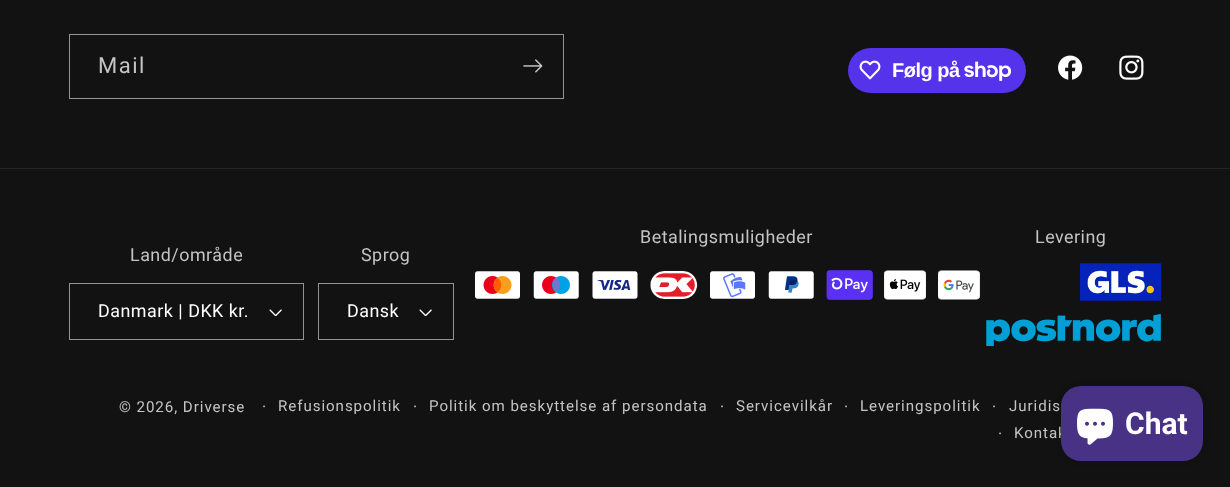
<svg xmlns="http://www.w3.org/2000/svg" width="1230" height="487" viewBox="0 0 1230 487">
  <rect width="100%" height="100%" fill="rgb(18,18,18)"/>
  <rect x="69.5" y="34.5" width="494" height="64" fill="none" stroke="rgb(148,148,148)"/>
  <text x="98" y="73" font-family="Roboto" font-size="22" letter-spacing="1.5" fill="rgb(196,196,196)">Mail</text>
  <image x="523" y="59" width="20" height="14" href="pic1.png"/>
  <rect x="848" y="48" width="178" height="45" rx="22.5" fill="rgb(84,51,235)"/>
  <image x="859" y="60" width="22" height="20" href="pic2.png"/>
  <text x="892" y="77" font-family="Liberation Sans" font-size="20" font-weight="bold" letter-spacing="-0.5" fill="rgb(255,255,255)">Følg på</text>
  <image x="964" y="61" width="47" height="20" href="pic3.png"/>
  <image x="1058" y="55" width="25" height="25" href="pic4.png"/>
  <image x="1119" y="55" width="25" height="25" href="pic5.png"/>
  <rect x="0" y="168" width="1230" height="1" fill="rgb(37,37,37)"/>
  <text x="640" y="243" font-family="Roboto" font-size="17.9" letter-spacing="0.5" fill="rgb(196,196,196)">Betalingsmuligheder</text>
  <image x="475" y="271" width="45" height="28" href="pic6.png"/>
  <image x="533" y="271" width="46" height="28" href="pic7.png"/>
  <image x="592" y="271" width="46" height="28" href="pic8.png"/>
  <image x="650" y="270" width="48" height="30" href="pic9.png"/>
  <image x="710" y="271" width="45" height="28" href="pic10.png"/>
  <image x="768" y="271" width="46" height="28" href="pic11.png"/>
  <image x="826" y="270" width="47" height="30" href="pic12.png"/>
  <image x="884" y="270" width="42" height="30" href="pic13.png"/>
  <image x="938" y="270" width="42" height="30" href="pic14.png"/>
  <text x="1035" y="243" font-family="Roboto" font-size="17.9" letter-spacing="0.5" fill="rgb(196,196,196)">Levering</text>
  <image x="1080" y="263" width="82" height="38" href="pic15.png"/>
  <image x="986" y="314" width="175" height="32" href="pic16.png"/>
  <text x="130" y="261" font-family="Roboto" font-size="17.9" letter-spacing="0.5" fill="rgb(196,196,196)">Land/område</text>
  <image x="269" y="309" width="13" height="7" href="pic17.png"/>
  <rect x="69.5" y="283.5" width="234" height="56" fill="none" stroke="rgb(148,148,148)"/>
  <text x="98" y="317" font-family="Roboto" font-size="17.9" letter-spacing="0.5" fill="rgb(255,255,255)">Danmark | DKK kr.</text>
  <text x="361" y="261" font-family="Roboto" font-size="17.9" letter-spacing="0.5" fill="rgb(196,196,196)">Sprog</text>
  <image x="419" y="309" width="13" height="7" href="pic17.png"/>
  <rect x="318.5" y="283.5" width="135" height="56" fill="none" stroke="rgb(148,148,148)"/>
  <text x="347" y="317" font-family="Roboto" font-size="17.9" letter-spacing="0.5" fill="rgb(255,255,255)">Dansk</text>
  <text x="119" y="412" font-family="Roboto" font-size="15.1" letter-spacing="0.95" fill="rgb(196,196,196)">© 2026, Driverse</text>
  <text x="262" y="412" font-family="Roboto" font-size="16" letter-spacing="0.95" fill="rgb(196,196,196)">·</text>
  <text x="278" y="411" font-family="Roboto" font-size="15.1" letter-spacing="0.95" fill="rgb(196,196,196)">Refusionspolitik</text>
  <text x="413" y="412" font-family="Roboto" font-size="16" letter-spacing="0.95" fill="rgb(196,196,196)">·</text>
  <text x="429" y="411" font-family="Roboto" font-size="15.1" letter-spacing="0.95" fill="rgb(196,196,196)">Politik om beskyttelse af persondata</text>
  <text x="720" y="412" font-family="Roboto" font-size="16" letter-spacing="0.95" fill="rgb(196,196,196)">·</text>
  <text x="736" y="411" font-family="Roboto" font-size="15.1" letter-spacing="0.95" fill="rgb(196,196,196)">Servicevilkår</text>
  <text x="844" y="412" font-family="Roboto" font-size="16" letter-spacing="0.95" fill="rgb(196,196,196)">·</text>
  <text x="860" y="411" font-family="Roboto" font-size="15.1" letter-spacing="0.95" fill="rgb(196,196,196)">Leveringspolitik</text>
  <text x="992" y="412" font-family="Roboto" font-size="16" letter-spacing="0.95" fill="rgb(196,196,196)">·</text>
  <text x="1009" y="411" font-family="Roboto" font-size="15.1" letter-spacing="0.95" fill="rgb(196,196,196)">Juridis</text>
  <text x="998" y="439" font-family="Roboto" font-size="16" letter-spacing="0.95" fill="rgb(196,196,196)">·</text>
  <text x="1014" y="438" font-family="Roboto" font-size="15.1" letter-spacing="0.95" fill="rgb(196,196,196)">Kontak</text>
  <rect x="1061" y="386" width="142" height="75" rx="20" fill="rgba(0,0,0,0.15)" filter="blur(3px)"/>
  <rect x="1061" y="386" width="142" height="75" rx="20" fill="rgb(72,50,133)"/>
  <image x="1077" y="408" width="36" height="37" href="pic18.png"/>
  <text x="1125" y="434" font-family="Roboto" font-size="30" font-weight="bold" fill="rgb(255,255,255)">Chat</text>
</svg>
